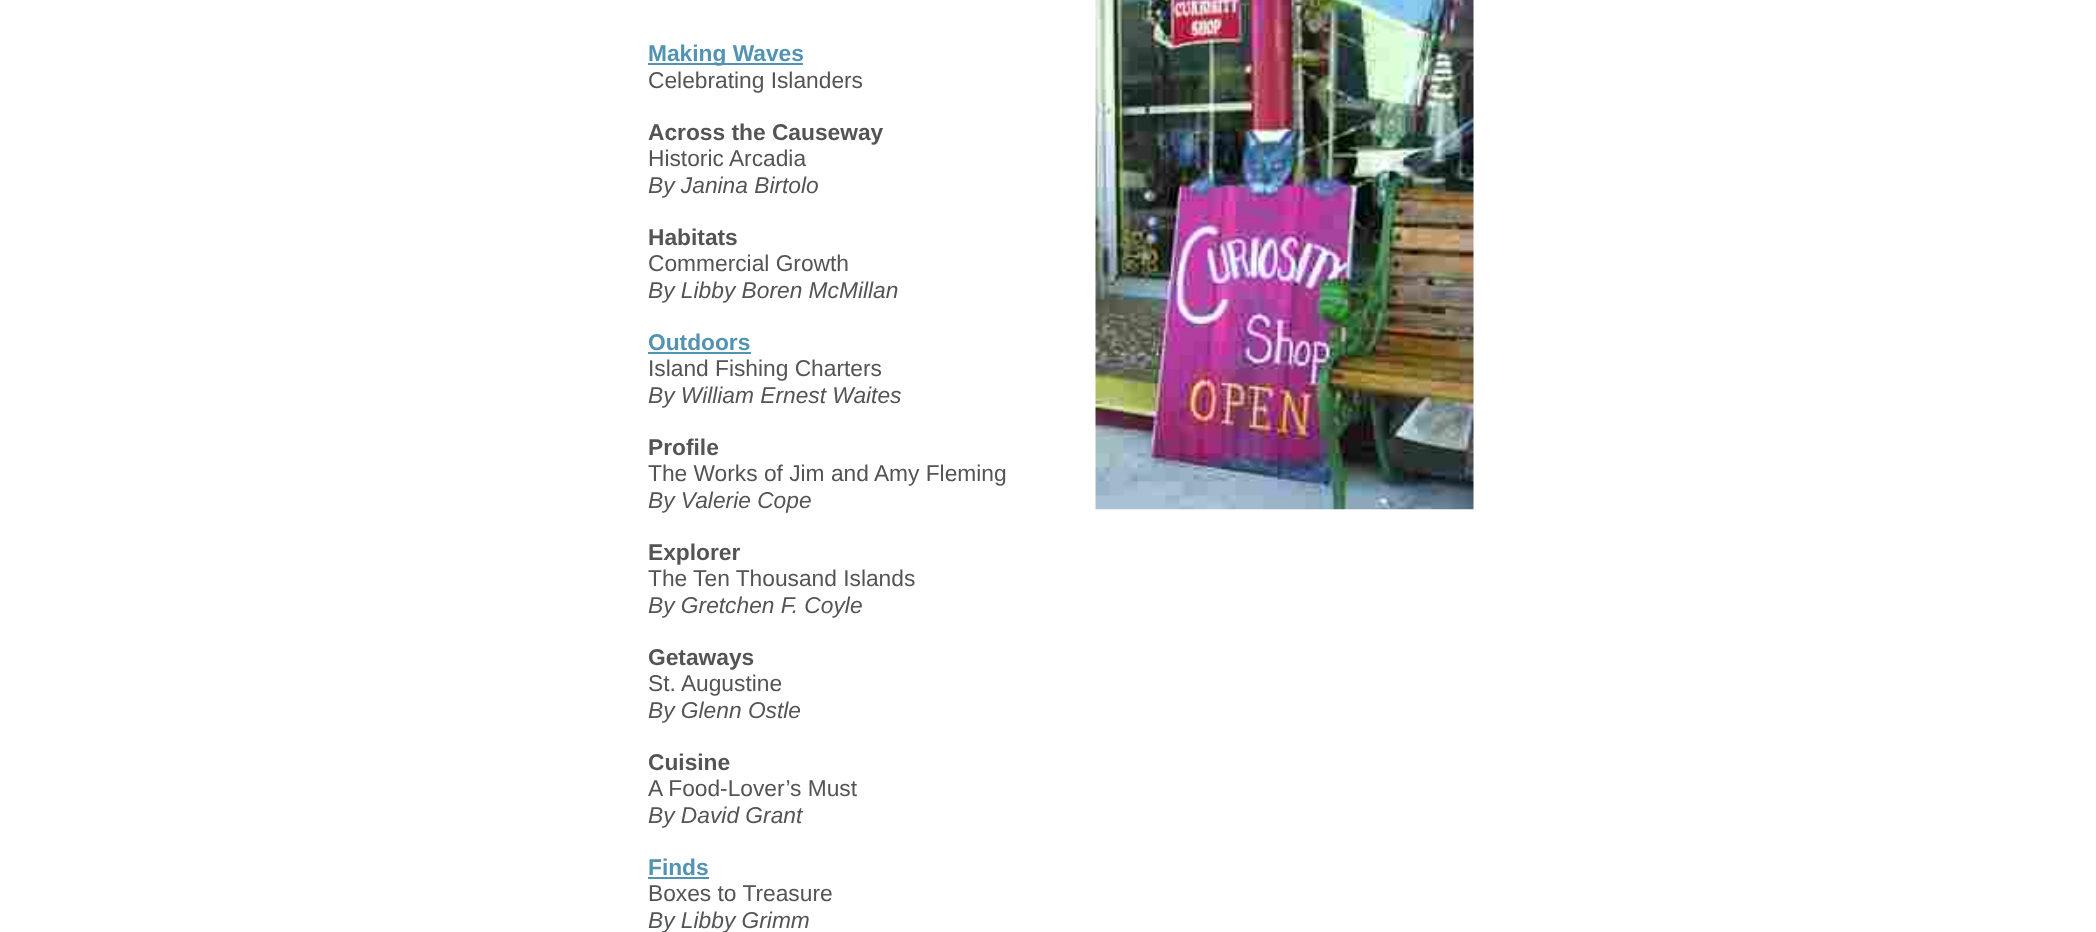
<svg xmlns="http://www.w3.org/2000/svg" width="2096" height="932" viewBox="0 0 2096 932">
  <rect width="100%" height="100%" fill="rgb(255,255,255)"/>
  <rect x="648" y="63" width="155" height="2" fill="rgb(82,147,177)"/>
  <text x="648" y="61" font-family="Liberation Sans" font-size="22.75" font-weight="bold" fill="rgb(82,147,177)">Making Waves</text>
  <image x="1095" y="0" width="379" height="510" href="pic1.png"/>
  <text x="648" y="88" font-family="Liberation Sans" font-size="22.75" fill="rgb(84,84,84)">Celebrating Islanders</text>
  <text x="648" y="140" font-family="Liberation Sans" font-size="22.75" font-weight="bold" fill="rgb(84,84,84)">Across the Causeway</text>
  <text x="648" y="166" font-family="Liberation Sans" font-size="22.75" fill="rgb(84,84,84)">Historic Arcadia</text>
  <text x="648" y="193" font-family="Liberation Sans" font-size="22.75" font-style="italic" fill="rgb(84,84,84)">By Janina Birtolo</text>
  <text x="648" y="245" font-family="Liberation Sans" font-size="22.75" font-weight="bold" fill="rgb(84,84,84)">Habitats</text>
  <text x="648" y="271" font-family="Liberation Sans" font-size="22.75" fill="rgb(84,84,84)">Commercial Growth</text>
  <text x="648" y="298" font-family="Liberation Sans" font-size="22.75" font-style="italic" fill="rgb(84,84,84)">By Libby Boren McMillan</text>
  <text x="648" y="350" font-family="Liberation Sans" font-size="22.75" font-weight="bold" fill="rgb(82,147,177)">Outdoors</text>
  <rect x="648" y="352" width="103" height="2" fill="rgb(82,147,177)"/>
  <text x="648" y="376" font-family="Liberation Sans" font-size="22.75" fill="rgb(84,84,84)">Island Fishing Charters</text>
  <text x="648" y="403" font-family="Liberation Sans" font-size="22.75" font-style="italic" fill="rgb(84,84,84)">By William Ernest Waites</text>
  <text x="648" y="455" font-family="Liberation Sans" font-size="22.75" font-weight="bold" fill="rgb(84,84,84)">Profile</text>
  <text x="648" y="481" font-family="Liberation Sans" font-size="22.75" fill="rgb(84,84,84)">The Works of Jim and Amy Fleming</text>
  <text x="648" y="508" font-family="Liberation Sans" font-size="22.75" font-style="italic" fill="rgb(84,84,84)">By Valerie Cope</text>
  <text x="648" y="560" font-family="Liberation Sans" font-size="22.75" font-weight="bold" fill="rgb(84,84,84)">Explorer</text>
  <text x="648" y="586" font-family="Liberation Sans" font-size="22.75" fill="rgb(84,84,84)">The Ten Thousand Islands</text>
  <text x="648" y="613" font-family="Liberation Sans" font-size="22.75" font-style="italic" fill="rgb(84,84,84)">By Gretchen F. Coyle</text>
  <text x="648" y="665" font-family="Liberation Sans" font-size="22.75" font-weight="bold" fill="rgb(84,84,84)">Getaways</text>
  <text x="648" y="691" font-family="Liberation Sans" font-size="22.75" fill="rgb(84,84,84)">St. Augustine</text>
  <text x="648" y="718" font-family="Liberation Sans" font-size="22.75" font-style="italic" fill="rgb(84,84,84)">By Glenn Ostle</text>
  <text x="648" y="770" font-family="Liberation Sans" font-size="22.75" font-weight="bold" fill="rgb(84,84,84)">Cuisine</text>
  <text x="648" y="796" font-family="Liberation Sans" font-size="22.75" fill="rgb(84,84,84)">A Food-Lover’s Must</text>
  <text x="648" y="823" font-family="Liberation Sans" font-size="22.75" font-style="italic" fill="rgb(84,84,84)">By David Grant</text>
  <text x="648" y="875" font-family="Liberation Sans" font-size="22.75" font-weight="bold" fill="rgb(82,147,177)">Finds</text>
  <rect x="648" y="877" width="61" height="2" fill="rgb(82,147,177)"/>
  <text x="648" y="901" font-family="Liberation Sans" font-size="22.75" fill="rgb(84,84,84)">Boxes to Treasure</text>
  <text x="648" y="928" font-family="Liberation Sans" font-size="22.75" font-style="italic" fill="rgb(84,84,84)">By Libby Grimm</text>
</svg>
